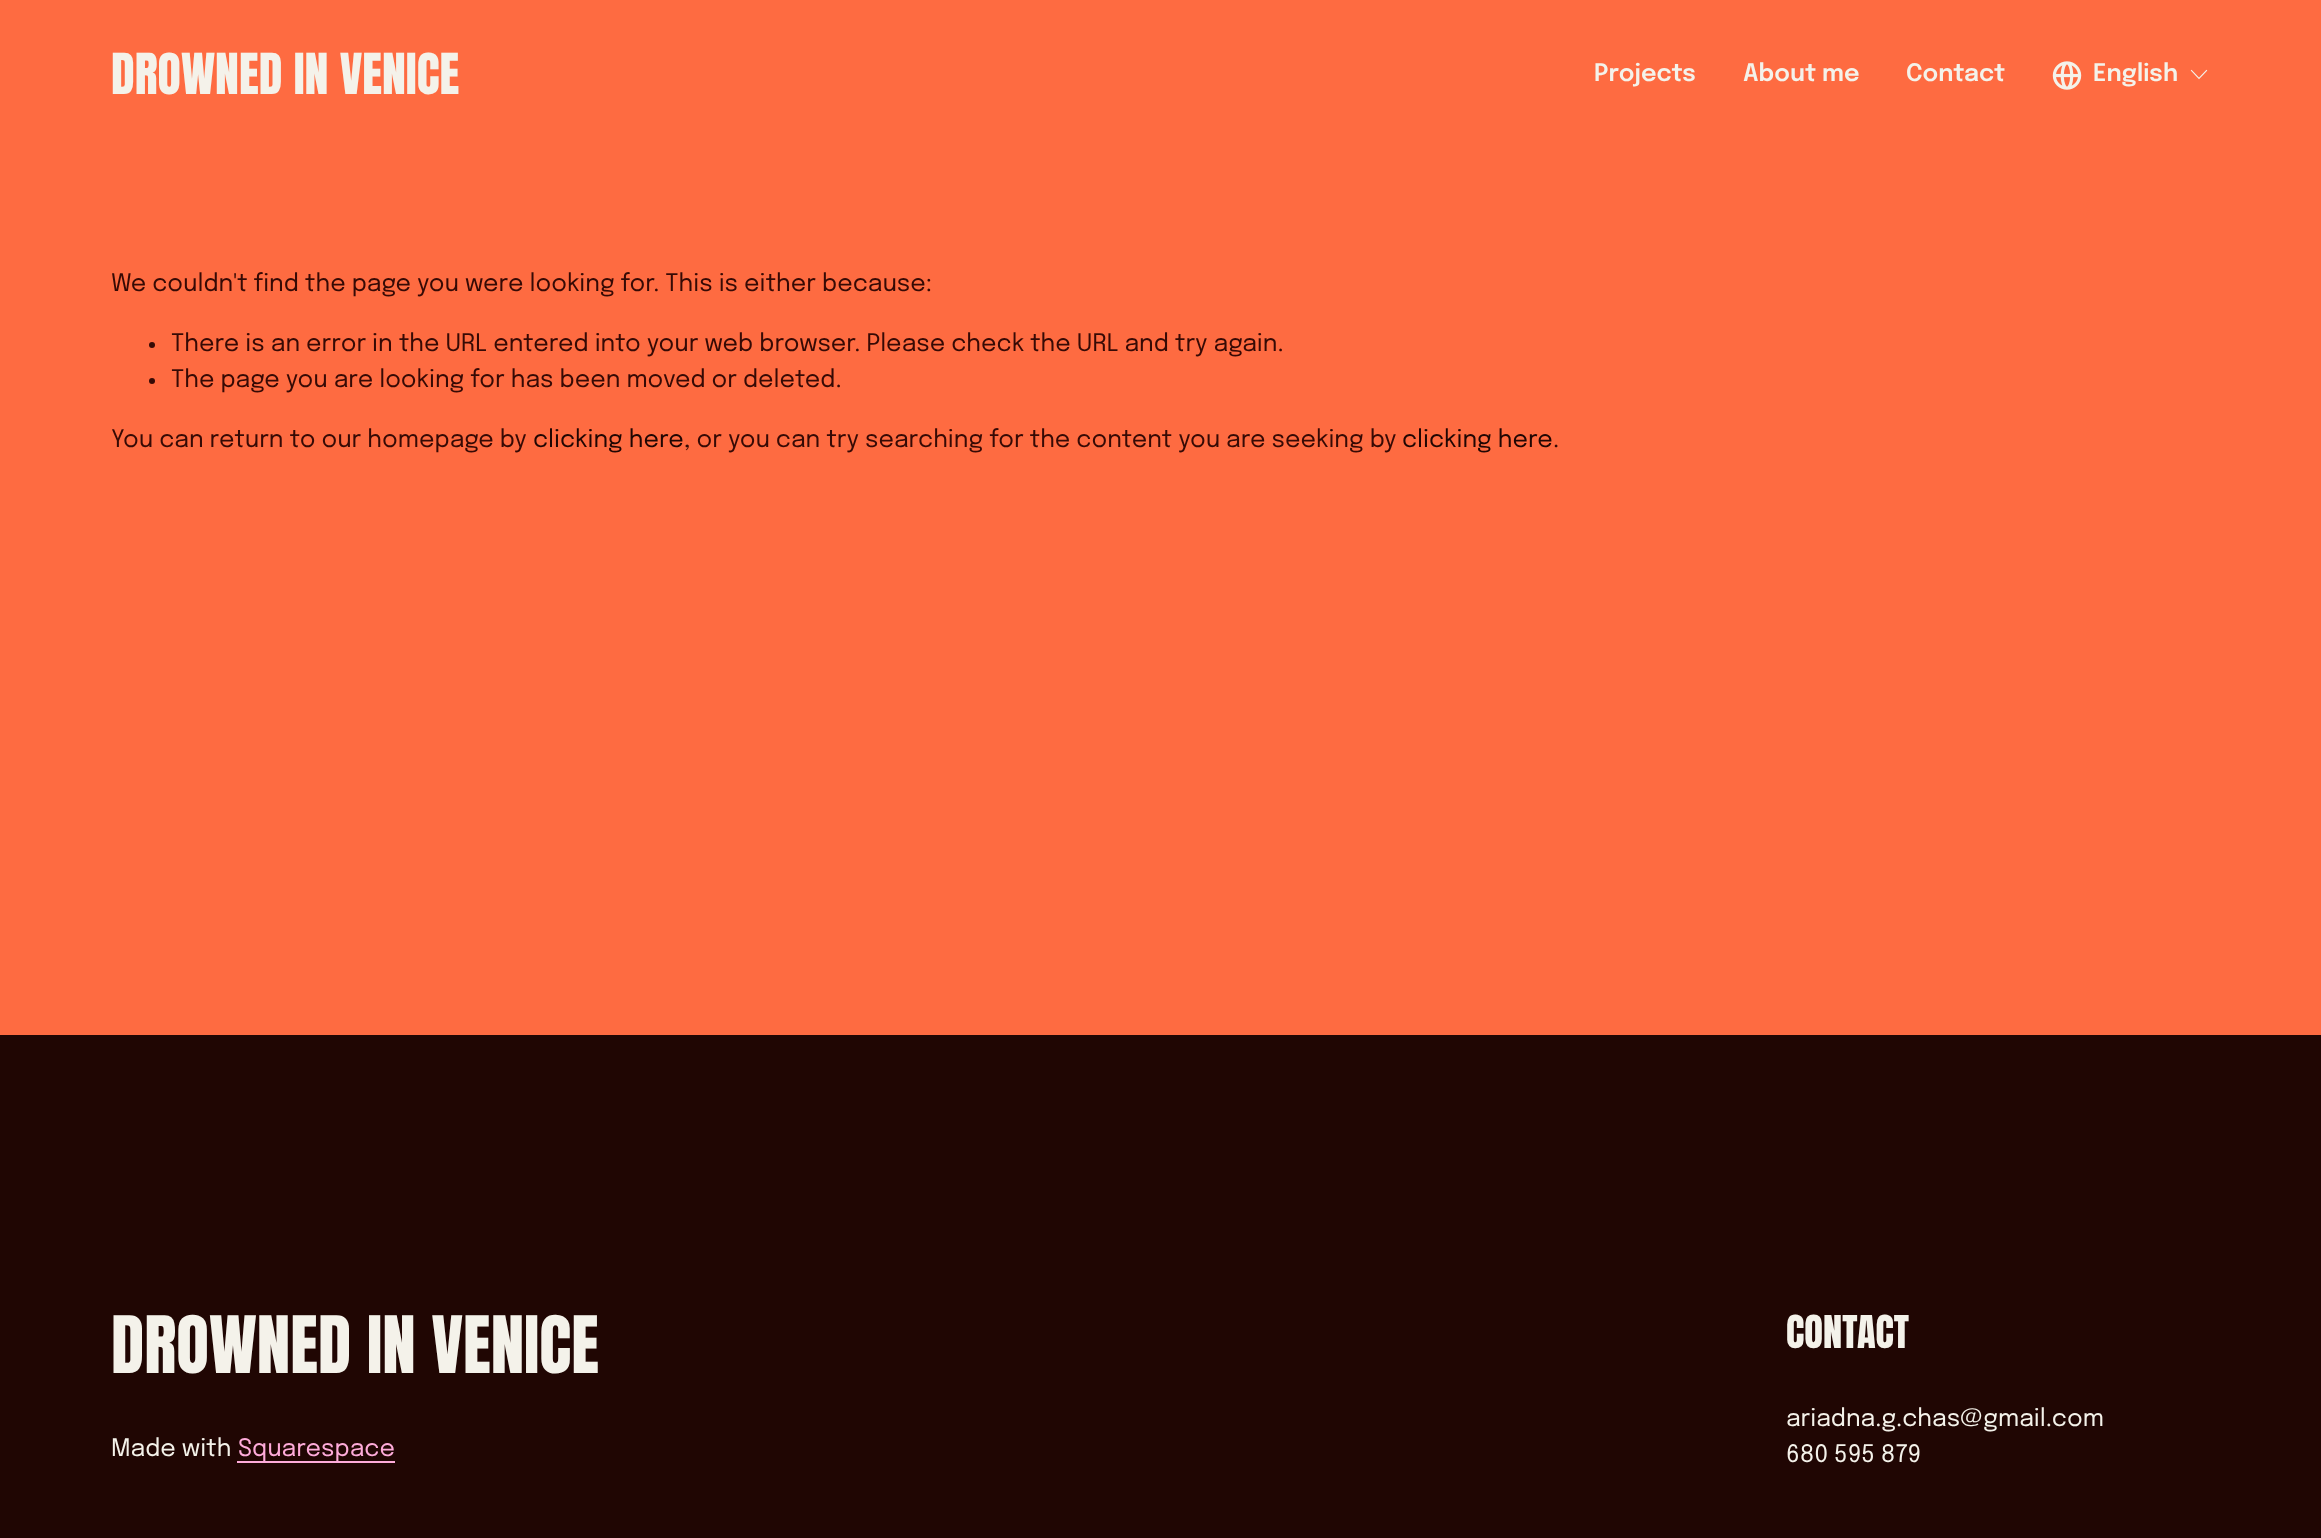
<svg xmlns="http://www.w3.org/2000/svg" width="2321" height="1538" viewBox="0 0 2321 1538">
  <rect width="100%" height="100%" fill="rgb(254,107,65)"/>
  <text x="111" y="94" font-family="Anton" font-size="48" fill="rgb(244,242,234)">DROWNED IN VENICE</text>
  <g font-family="Epilogue" font-size="24" font-weight="600" fill="rgb(244,242,234)">
    <text x="1594" y="81">Projects</text>
    <text x="1743" y="81">About me</text>
    <text x="1906" y="81">Contact</text>
  </g>
  <image x="2052" y="61" width="30" height="29" href="pic1.png"/>
  <text x="2093" y="81" font-family="Epilogue" font-size="24" font-weight="600" fill="rgb(244,242,234)">English</text>
  <path d="M2206.5 70.5L2199 78.5L2191.5 70.5" fill="none" stroke="rgb(244,242,234)" stroke-width="1.1" stroke-linecap="square"/>
  <text x="111" y="291" font-family="Epilogue" font-size="24" fill="rgb(54,10,5)">We couldn't find the page you were looking for. This is either because:</text>
  <circle cx="152" cy="345" r="3" fill="rgb(54,10,5)"/>
  <text x="171" y="351" font-family="Epilogue" font-size="24" fill="rgb(54,10,5)">There is an error in the URL entered into your web browser. Please check the URL and try again.</text>
  <circle cx="152" cy="381" r="3" fill="rgb(54,10,5)"/>
  <g font-family="Epilogue" font-size="24" fill="rgb(54,10,5)">
    <text x="171" y="387">The page you are looking for has been moved or deleted.</text>
    <text x="111" y="447">You can return to our homepage by</text>
  </g>
  <text x="533" y="447" font-family="Epilogue" font-size="24" fill="rgb(32,6,3)">clicking here</text>
  <text x="684" y="447" font-family="Epilogue" font-size="24" fill="rgb(54,10,5)">, or you can try searching for the content you are seeking by</text>
  <text x="1402" y="447" font-family="Epilogue" font-size="24" fill="rgb(32,6,3)">clicking here</text>
  <text x="1553" y="447" font-family="Epilogue" font-size="24" fill="rgb(54,10,5)">.</text>
  <rect x="0" y="1035" width="2321" height="503" fill="rgb(32,6,3)"/>
  <text x="111" y="1373" font-family="Anton" font-size="67.25" fill="rgb(244,242,234)">DROWNED IN VENICE</text>
  <text x="1786" y="1348" font-family="Anton" font-size="38.5" fill="rgb(244,242,234)">CONTACT</text>
  <g font-family="Epilogue" font-size="24" fill="rgb(244,242,234)">
    <text>
      <tspan x="1786" y="1426">ariadna.g.chas@gmail.com</tspan>
      <tspan x="1786" y="1462">680 595 879</tspan>
    </text>
    <text x="111" y="1456">Made with</text>
  </g>
  <rect x="237" y="1461" width="158" height="2" fill="rgb(254,171,218)"/>
  <text x="238" y="1456" font-family="Epilogue" font-size="24" fill="rgb(254,171,218)">Squarespace</text>
</svg>
